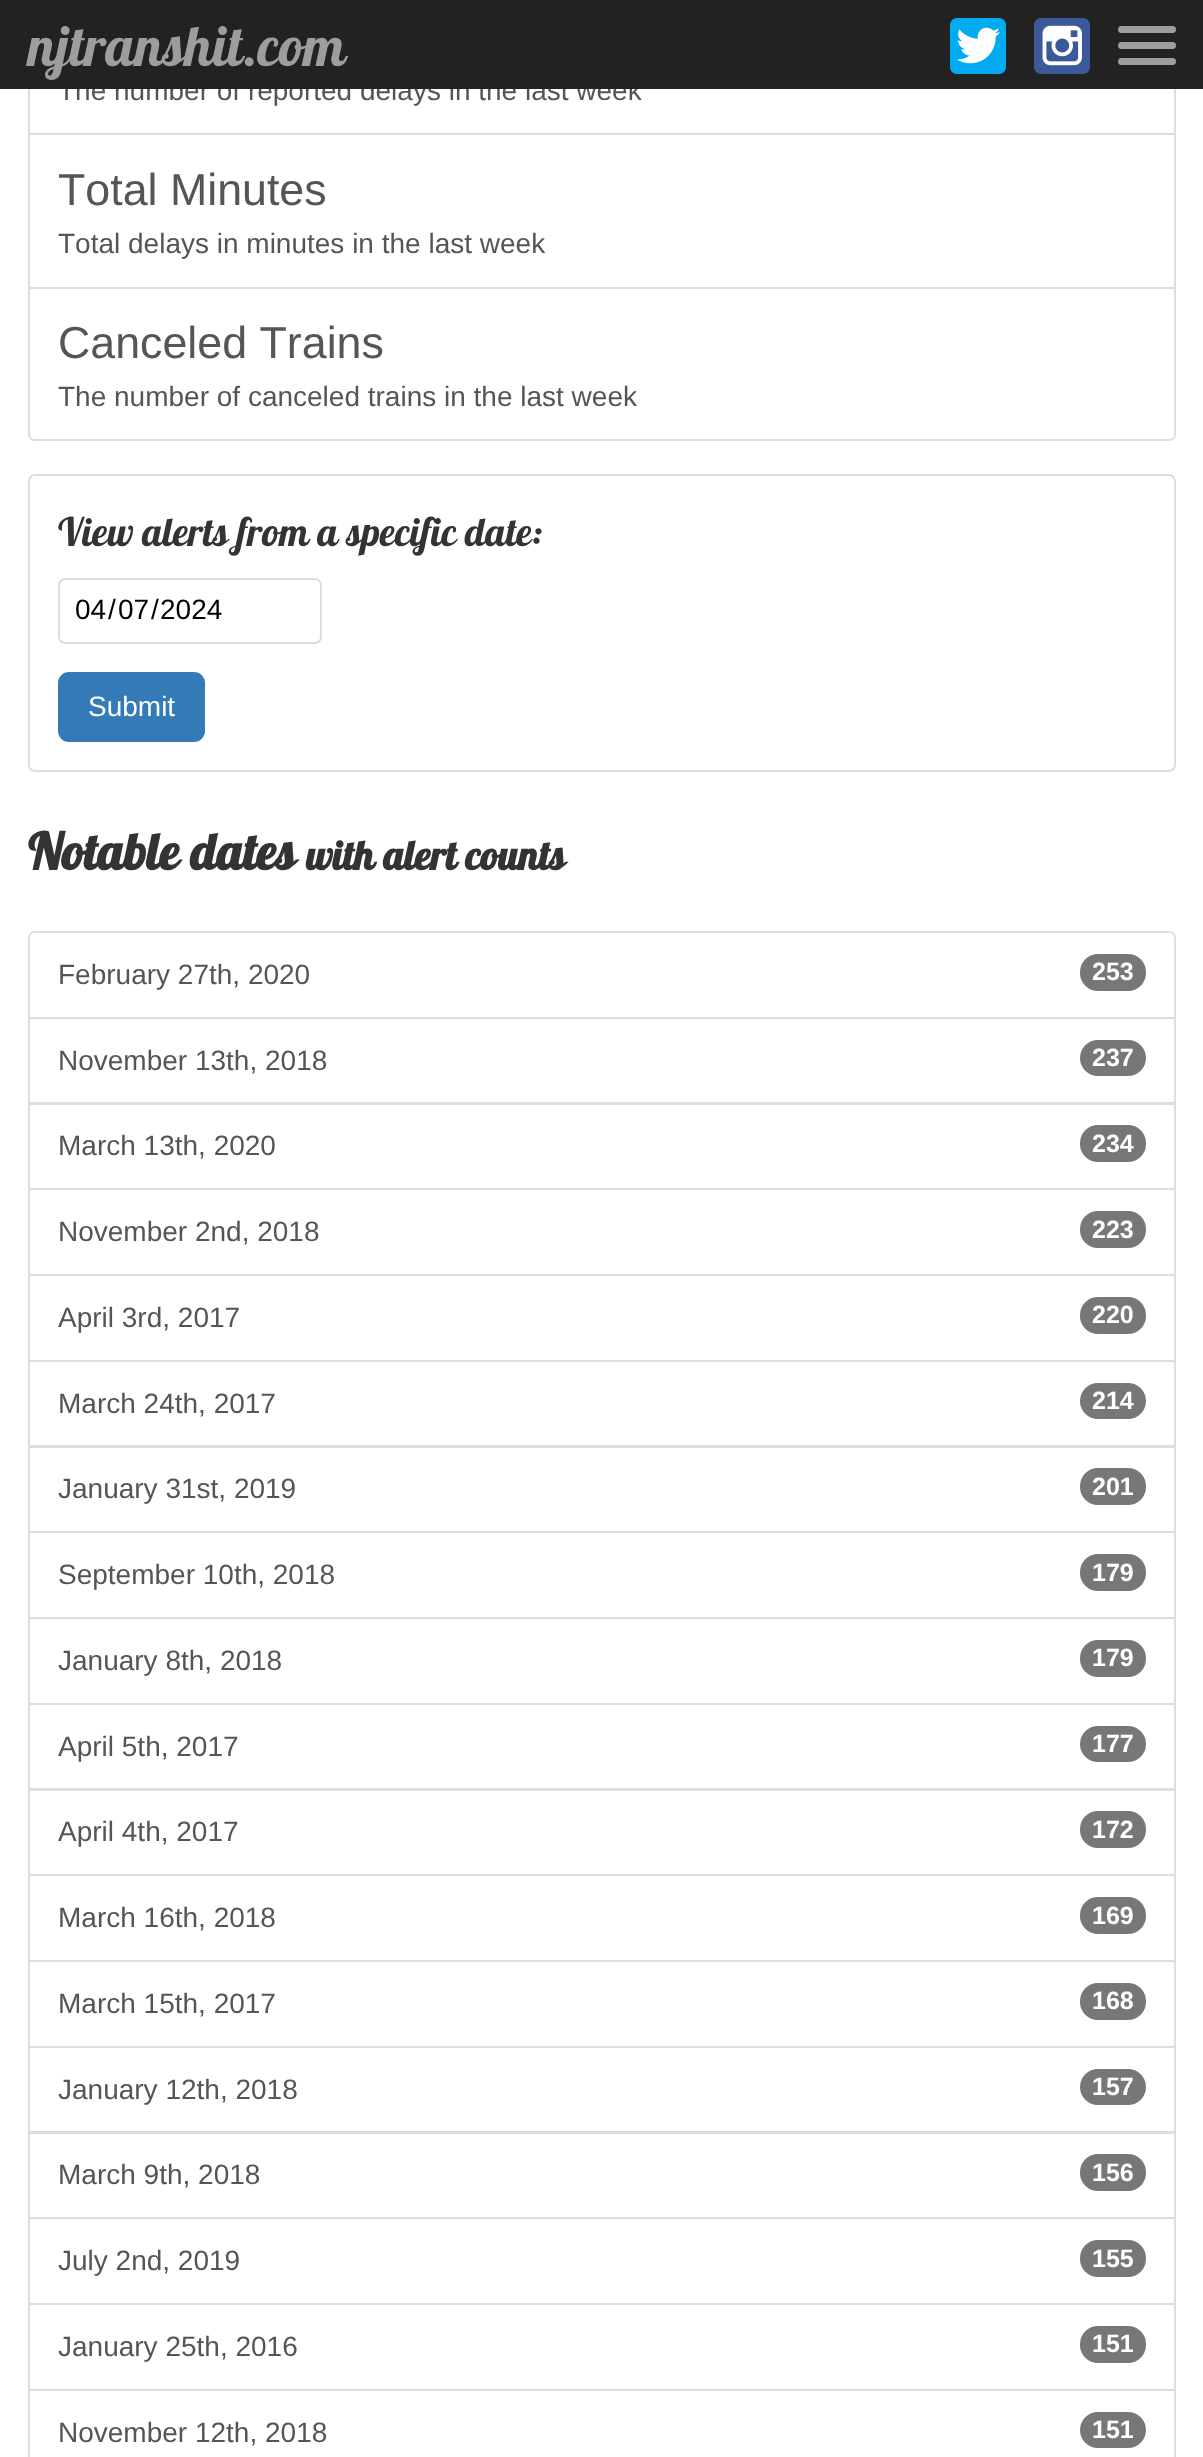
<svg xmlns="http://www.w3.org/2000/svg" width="1203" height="2457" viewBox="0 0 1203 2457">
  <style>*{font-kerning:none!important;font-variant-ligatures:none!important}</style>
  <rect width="100%" height="100%" fill="rgb(255,255,255)"/>
  <rect x="29" y="-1" width="1146" height="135" fill="none" stroke="rgb(221,221,221)" stroke-width="2"/>
  <text x="58" y="100" font-family="Liberation Sans" font-size="28" fill="rgb(85,85,85)">The number of reported delays in the last week</text>
  <rect x="0" y="0" width="1203" height="89" fill="rgb(34,34,34)"/>
  <text x="28" y="66" font-family="Lobster" font-size="56" fill="rgb(157,157,157)">njtranshit.com</text>
  <image x="950" y="18" width="56" height="56" href="pic1.png"/>
  <image x="1034" y="18" width="56" height="56" href="pic2.png"/>
  <rect x="1118" y="26" width="58" height="7" rx="3.5" fill="rgb(157,157,157)"/>
  <rect x="1118" y="42" width="58" height="7" rx="3.5" fill="rgb(157,157,157)"/>
  <rect x="1118" y="58" width="58" height="7" rx="3.5" fill="rgb(157,157,157)"/>
  <rect x="29" y="134" width="1146" height="154" fill="none" stroke="rgb(221,221,221)" stroke-width="2"/>
  <text x="58" y="205" font-family="Liberation Sans" font-size="44.75" fill="rgb(85,85,85)">Total Minutes</text>
  <text x="58" y="253" font-family="Liberation Sans" font-size="28" fill="rgb(85,85,85)">Total delays in minutes in the last week</text>
  <path d="M29 288H1175V434C1175 437.5 1172.5 440 1169 440H35C31.5 440 29 437.5 29 434Z" fill="rgb(255,255,255)" stroke="rgb(221,221,221)" stroke-width="2"/>
  <text x="58" y="358" font-family="Liberation Sans" font-size="44.75" fill="rgb(85,85,85)">Canceled Trains</text>
  <text x="58" y="406" font-family="Liberation Sans" font-size="28" fill="rgb(85,85,85)">The number of canceled trains in the last week</text>
  <rect x="29" y="475" width="1146" height="296" rx="6" fill="none" stroke="rgb(221,221,221)" stroke-width="2"/>
  <text x="58" y="546" font-family="Lobster" font-size="39.25" fill="rgb(51,51,51)">View alerts from a specific</text>
  <text x="465" y="546" font-family="Lobster" font-size="39.25" fill="rgb(51,51,51)">date:</text>
  <rect x="59" y="579" width="262" height="64" rx="6" fill="none" stroke="rgb(221,221,221)" stroke-width="2"/>
  <g font-family="Liberation Sans" font-size="28" fill="rgb(0,0,0)">
    <text x="75" y="619">04</text>
    <text x="108" y="619">/</text>
    <text x="118" y="619">07</text>
    <text x="151" y="619">/</text>
    <text x="160" y="619">2024</text>
  </g>
  <rect x="58" y="672" width="147" height="70" rx="11" fill="rgb(51,122,183)"/>
  <text x="88" y="716" font-family="Liberation Sans" font-size="28" fill="rgb(255,255,255)">Submit</text>
  <text x="28" y="870" font-family="Lobster" font-size="50.5" font-weight="bold" fill="rgb(51,51,51)">Notable dates</text>
  <text x="306" y="870" font-family="Lobster" font-size="40.25" font-weight="bold" fill="rgb(51,51,51)">with alert counts</text>
  <path d="M35 932H1169C1172.5 932 1175 934.5 1175 938V1018H29V938C29 934.5 31.5 932 35 932Z" fill="none" stroke="rgb(221,221,221)" stroke-width="2"/>
  <text x="58" y="984" font-family="Liberation Sans" font-size="28" fill="rgb(85,85,85)">February 27th, 2020</text>
  <rect x="1080" y="954" width="66" height="37" rx="18" fill="rgb(119,119,119)"/>
  <text x="1092" y="980" font-family="Liberation Sans" font-size="25" font-weight="bold" fill="rgb(255,255,255)">253</text>
  <rect x="29" y="1018" width="1146" height="85" fill="none" stroke="rgb(221,221,221)" stroke-width="2"/>
  <text x="58" y="1070" font-family="Liberation Sans" font-size="28" fill="rgb(85,85,85)">November 13th, 2018</text>
  <rect x="1080" y="1040" width="66" height="36" rx="18" fill="rgb(119,119,119)"/>
  <text x="1092" y="1066" font-family="Liberation Sans" font-size="25" font-weight="bold" fill="rgb(255,255,255)">237</text>
  <rect x="29" y="1104" width="1146" height="85" fill="none" stroke="rgb(221,221,221)" stroke-width="2"/>
  <text x="58" y="1155" font-family="Liberation Sans" font-size="28" fill="rgb(85,85,85)">March 13th, 2020</text>
  <rect x="1080" y="1125" width="66" height="37" rx="18" fill="rgb(119,119,119)"/>
  <text x="1092" y="1152" font-family="Liberation Sans" font-size="25" font-weight="bold" fill="rgb(255,255,255)">234</text>
  <rect x="29" y="1189" width="1146" height="86" fill="none" stroke="rgb(221,221,221)" stroke-width="2"/>
  <text x="58" y="1241" font-family="Liberation Sans" font-size="28" fill="rgb(85,85,85)">November 2nd, 2018</text>
  <rect x="1080" y="1211" width="66" height="37" rx="18" fill="rgb(119,119,119)"/>
  <text x="1092" y="1238" font-family="Liberation Sans" font-size="25" font-weight="bold" fill="rgb(255,255,255)">223</text>
  <rect x="29" y="1275" width="1146" height="86" fill="none" stroke="rgb(221,221,221)" stroke-width="2"/>
  <text x="58" y="1327" font-family="Liberation Sans" font-size="28" fill="rgb(85,85,85)">April 3rd, 2017</text>
  <rect x="1080" y="1297" width="66" height="37" rx="18" fill="rgb(119,119,119)"/>
  <text x="1092" y="1323" font-family="Liberation Sans" font-size="25" font-weight="bold" fill="rgb(255,255,255)">220</text>
  <rect x="29" y="1361" width="1146" height="85" fill="none" stroke="rgb(221,221,221)" stroke-width="2"/>
  <text x="58" y="1413" font-family="Liberation Sans" font-size="28" fill="rgb(85,85,85)">March 24th, 2017</text>
  <rect x="1080" y="1383" width="66" height="36" rx="18" fill="rgb(119,119,119)"/>
  <text x="1092" y="1409" font-family="Liberation Sans" font-size="25" font-weight="bold" fill="rgb(255,255,255)">214</text>
  <rect x="29" y="1447" width="1146" height="85" fill="none" stroke="rgb(221,221,221)" stroke-width="2"/>
  <text x="58" y="1498" font-family="Liberation Sans" font-size="28" fill="rgb(85,85,85)">January 31st, 2019</text>
  <rect x="1080" y="1468" width="66" height="37" rx="18" fill="rgb(119,119,119)"/>
  <text x="1092" y="1495" font-family="Liberation Sans" font-size="25" font-weight="bold" fill="rgb(255,255,255)">201</text>
  <rect x="29" y="1532" width="1146" height="86" fill="none" stroke="rgb(221,221,221)" stroke-width="2"/>
  <text x="58" y="1584" font-family="Liberation Sans" font-size="28" fill="rgb(85,85,85)">September 10th, 2018</text>
  <rect x="1080" y="1554" width="66" height="37" rx="18" fill="rgb(119,119,119)"/>
  <text x="1092" y="1581" font-family="Liberation Sans" font-size="25" font-weight="bold" fill="rgb(255,255,255)">179</text>
  <rect x="29" y="1618" width="1146" height="86" fill="none" stroke="rgb(221,221,221)" stroke-width="2"/>
  <text x="58" y="1670" font-family="Liberation Sans" font-size="28" fill="rgb(85,85,85)">January 8th, 2018</text>
  <rect x="1080" y="1640" width="66" height="37" rx="18" fill="rgb(119,119,119)"/>
  <text x="1092" y="1666" font-family="Liberation Sans" font-size="25" font-weight="bold" fill="rgb(255,255,255)">179</text>
  <rect x="29" y="1704" width="1146" height="85" fill="none" stroke="rgb(221,221,221)" stroke-width="2"/>
  <text x="58" y="1756" font-family="Liberation Sans" font-size="28" fill="rgb(85,85,85)">April 5th, 2017</text>
  <rect x="1080" y="1726" width="66" height="36" rx="18" fill="rgb(119,119,119)"/>
  <text x="1092" y="1752" font-family="Liberation Sans" font-size="25" font-weight="bold" fill="rgb(255,255,255)">177</text>
  <rect x="29" y="1790" width="1146" height="85" fill="none" stroke="rgb(221,221,221)" stroke-width="2"/>
  <text x="58" y="1841" font-family="Liberation Sans" font-size="28" fill="rgb(85,85,85)">April 4th, 2017</text>
  <rect x="1080" y="1811" width="66" height="37" rx="18" fill="rgb(119,119,119)"/>
  <text x="1092" y="1838" font-family="Liberation Sans" font-size="25" font-weight="bold" fill="rgb(255,255,255)">172</text>
  <rect x="29" y="1875" width="1146" height="86" fill="none" stroke="rgb(221,221,221)" stroke-width="2"/>
  <text x="58" y="1927" font-family="Liberation Sans" font-size="28" fill="rgb(85,85,85)">March 16th, 2018</text>
  <rect x="1080" y="1897" width="66" height="37" rx="18" fill="rgb(119,119,119)"/>
  <text x="1092" y="1924" font-family="Liberation Sans" font-size="25" font-weight="bold" fill="rgb(255,255,255)">169</text>
  <rect x="29" y="1961" width="1146" height="86" fill="none" stroke="rgb(221,221,221)" stroke-width="2"/>
  <text x="58" y="2013" font-family="Liberation Sans" font-size="28" fill="rgb(85,85,85)">March 15th, 2017</text>
  <rect x="1080" y="1983" width="66" height="37" rx="18" fill="rgb(119,119,119)"/>
  <text x="1092" y="2009" font-family="Liberation Sans" font-size="25" font-weight="bold" fill="rgb(255,255,255)">168</text>
  <rect x="29" y="2047" width="1146" height="85" fill="none" stroke="rgb(221,221,221)" stroke-width="2"/>
  <text x="58" y="2099" font-family="Liberation Sans" font-size="28" fill="rgb(85,85,85)">January 12th, 2018</text>
  <rect x="1080" y="2069" width="66" height="36" rx="18" fill="rgb(119,119,119)"/>
  <text x="1092" y="2095" font-family="Liberation Sans" font-size="25" font-weight="bold" fill="rgb(255,255,255)">157</text>
  <rect x="29" y="2133" width="1146" height="85" fill="none" stroke="rgb(221,221,221)" stroke-width="2"/>
  <text x="58" y="2184" font-family="Liberation Sans" font-size="28" fill="rgb(85,85,85)">March 9th, 2018</text>
  <rect x="1080" y="2154" width="66" height="37" rx="18" fill="rgb(119,119,119)"/>
  <text x="1092" y="2181" font-family="Liberation Sans" font-size="25" font-weight="bold" fill="rgb(255,255,255)">156</text>
  <rect x="29" y="2218" width="1146" height="86" fill="none" stroke="rgb(221,221,221)" stroke-width="2"/>
  <text x="58" y="2270" font-family="Liberation Sans" font-size="28" fill="rgb(85,85,85)">July 2nd, 2019</text>
  <rect x="1080" y="2240" width="66" height="37" rx="18" fill="rgb(119,119,119)"/>
  <text x="1092" y="2267" font-family="Liberation Sans" font-size="25" font-weight="bold" fill="rgb(255,255,255)">155</text>
  <rect x="29" y="2304" width="1146" height="86" fill="none" stroke="rgb(221,221,221)" stroke-width="2"/>
  <text x="58" y="2356" font-family="Liberation Sans" font-size="28" fill="rgb(85,85,85)">January 25th, 2016</text>
  <rect x="1080" y="2326" width="66" height="37" rx="18" fill="rgb(119,119,119)"/>
  <text x="1092" y="2352" font-family="Liberation Sans" font-size="25" font-weight="bold" fill="rgb(255,255,255)">151</text>
  <rect x="29" y="2390" width="1146" height="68" fill="none" stroke="rgb(221,221,221)" stroke-width="2"/>
  <text x="58" y="2442" font-family="Liberation Sans" font-size="28" fill="rgb(85,85,85)">November 12th, 2018</text>
  <rect x="1080" y="2412" width="66" height="36" rx="18" fill="rgb(119,119,119)"/>
  <text x="1092" y="2438" font-family="Liberation Sans" font-size="25" font-weight="bold" fill="rgb(255,255,255)">151</text>
</svg>
